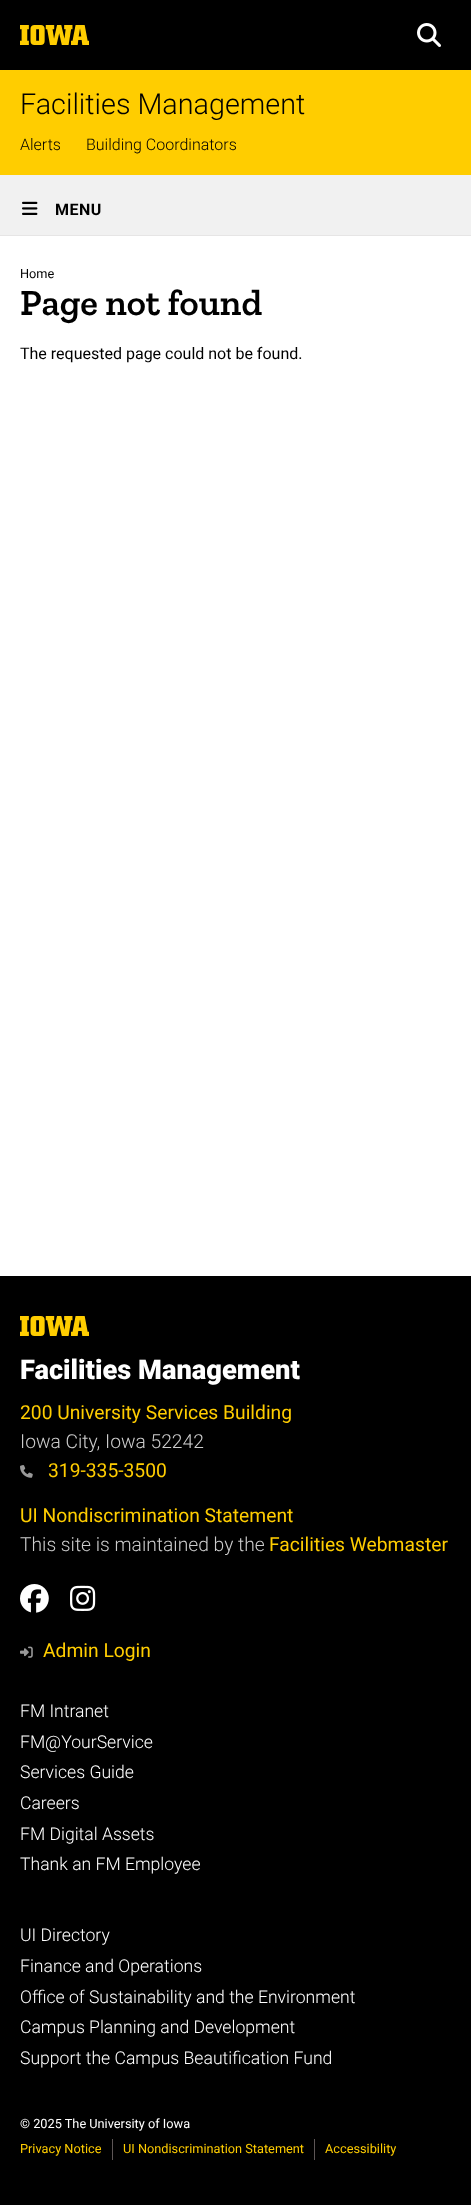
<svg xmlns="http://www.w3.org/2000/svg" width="471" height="2205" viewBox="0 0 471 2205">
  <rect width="100%" height="100%" fill="rgb(255,255,255)"/>
  <rect x="0" y="0" width="471" height="70" fill="rgb(0,0,0)"/>
  <image x="20" y="25" width="69" height="20" href="pic1.png"/>
  <image x="417" y="23" width="24" height="24" href="pic2.png"/>
  <rect x="0" y="70" width="471" height="105" fill="rgb(255,205,0)"/>
  <text x="20" y="114" font-family="Roboto" font-size="28.75" font-weight="300" fill="rgb(0,0,0)">Facilities Management</text>
  <g font-family="Roboto" font-size="16" font-weight="300" fill="rgb(0,0,0)">
    <text x="20" y="150">Alerts</text>
    <text x="86" y="150">Building Coordinators</text>
  </g>
  <rect x="0" y="235" width="471" height="1" fill="rgb(230,229,229)"/>
  <rect x="0" y="175" width="471" height="60" fill="rgb(241,241,241)"/>
  <image x="22" y="201" width="16" height="14" href="pic3.png"/>
  <text x="55" y="215" font-family="Roboto" font-size="16" font-weight="bold" letter-spacing="0.5" fill="rgb(0,0,0)">MENU</text>
  <text x="20" y="278" font-family="Roboto" font-size="12.75" fill="rgb(0,0,0)">Home</text>
  <text x="20" y="315" font-family="Zilla Slab" font-size="36.75" font-weight="600" fill="rgb(0,0,0)">Page not found</text>
  <text x="20" y="359" font-family="Roboto" font-size="16" fill="rgb(0,0,0)">The requested page could not be found.</text>
  <rect x="0" y="1276" width="471" height="929" fill="rgb(0,0,0)"/>
  <image x="20" y="1316" width="69" height="20" href="pic1.png"/>
  <text x="20" y="1379" font-family="Roboto" font-size="27.25" font-weight="900" fill="rgb(255,255,255)">Facilities Management</text>
  <text x="20" y="1419" font-family="Roboto" font-size="19.25" fill="rgb(255,205,0)">200 University Services Building</text>
  <text x="20" y="1448" font-family="Roboto" font-size="19.25" font-weight="300" fill="rgb(204,204,204)">Iowa City, Iowa 52242</text>
  <image x="20" y="1465" width="13" height="13" href="pic4.png"/>
  <g font-family="Roboto" font-size="19.25" fill="rgb(255,205,0)">
    <text x="48" y="1477">319-335-3500</text>
    <text x="20" y="1522">UI Nondiscrimination Statement</text>
  </g>
  <text x="20" y="1551" font-family="Roboto" font-size="19.25" font-weight="300" fill="rgb(204,204,204)">This site is maintained by the</text>
  <text x="269" y="1551" font-family="Roboto" font-size="19.25" fill="rgb(255,205,0)">Facilities Webmaster</text>
  <image x="20" y="1584" width="29" height="29" href="pic5.png"/>
  <image x="70" y="1585" width="26" height="26" href="pic6.png"/>
  <image x="20" y="1646" width="13" height="12" href="pic7.png"/>
  <text x="43" y="1657" font-family="Roboto" font-size="19.25" fill="rgb(255,205,0)">Admin Login</text>
  <g font-family="Roboto" font-size="17.6" font-weight="300" fill="rgb(255,255,255)">
    <text>
      <tspan x="20" y="1717">FM Intranet</tspan>
      <tspan x="20" y="1748">FM@YourService</tspan>
      <tspan x="20" y="1778">Services Guide</tspan>
      <tspan x="20" y="1809">Careers</tspan>
      <tspan x="20" y="1840">FM Digital Assets</tspan>
      <tspan x="20" y="1870">Thank an FM Employee</tspan>
    </text>
    <text>
      <tspan x="20" y="1941">UI Directory</tspan>
      <tspan x="20" y="1972">Finance and Operations</tspan>
      <tspan x="20" y="2003">Office of Sustainability and the Environment</tspan>
      <tspan x="20" y="2033">Campus Planning and Development</tspan>
      <tspan x="20" y="2064">Support the Campus Beautification Fund</tspan>
    </text>
  </g>
  <text x="20" y="2128" font-family="Roboto" font-size="12.75" fill="rgb(255,255,255)">© 2025 The University of Iowa</text>
  <rect x="112" y="2139" width="1" height="21" fill="rgb(93,86,86)"/>
  <text x="20" y="2153" font-family="Roboto" font-size="12.75" fill="rgb(255,205,0)">Privacy Notice</text>
  <rect x="314" y="2139" width="1" height="21" fill="rgb(93,86,86)"/>
  <g font-family="Roboto" font-size="12.75" fill="rgb(255,205,0)">
    <text x="123" y="2153">UI Nondiscrimination Statement</text>
    <text x="325" y="2153">Accessibility</text>
  </g>
</svg>
